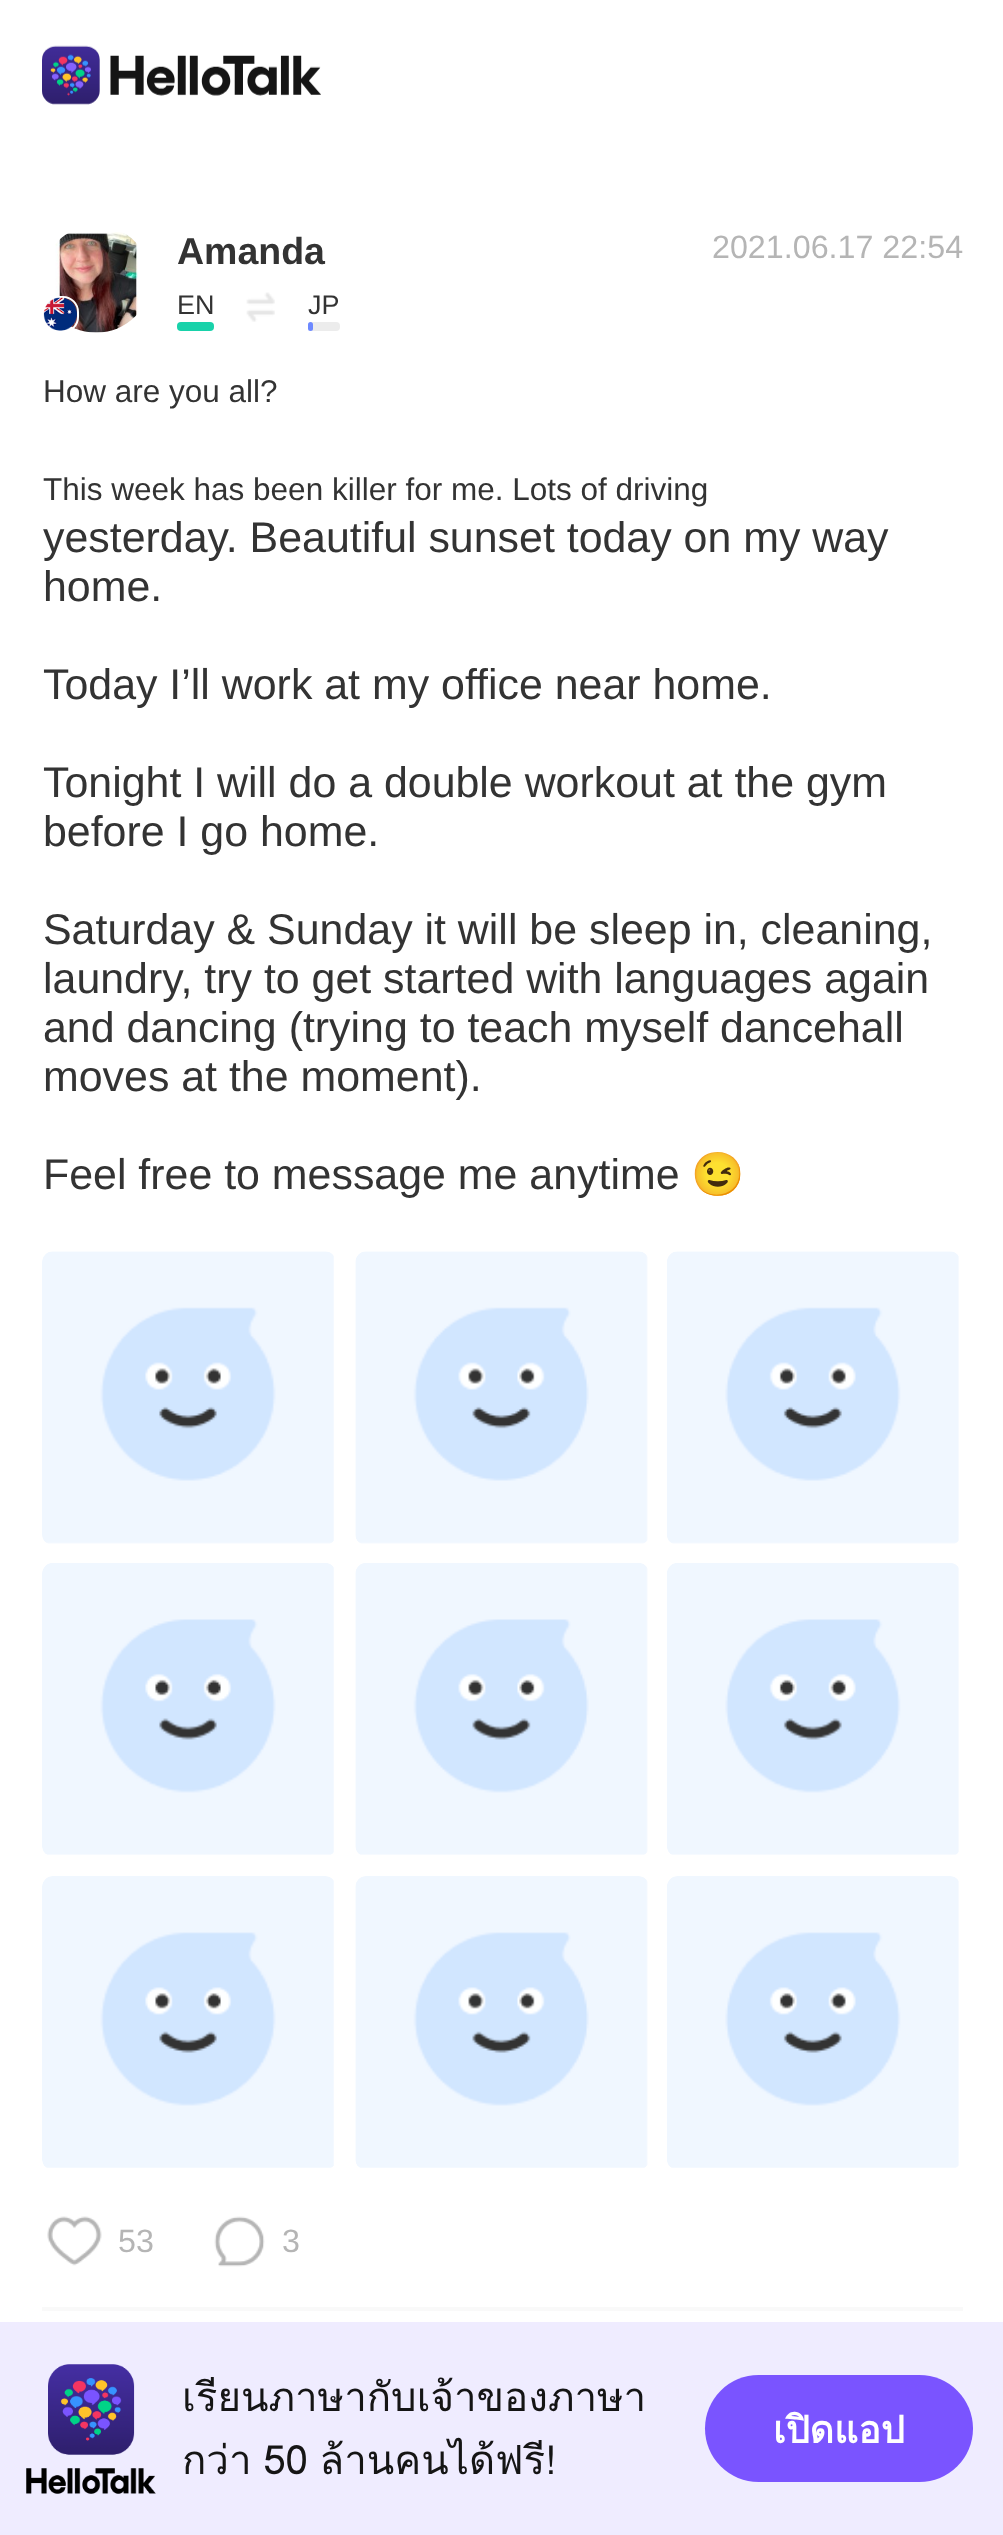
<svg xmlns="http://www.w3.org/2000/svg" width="1003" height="2535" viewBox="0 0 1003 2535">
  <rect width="100%" height="100%" fill="rgb(255,255,255)"/>
  <image x="42" y="45" width="279" height="60" href="pic1.png"/>
  <image x="55" y="232" width="83" height="101" href="pic2.png"/>
  <rect x="43" y="297" width="35" height="35" rx="15" fill="none" stroke="rgb(255,255,255)" stroke-width="2"/>
  <image x="43" y="297" width="34" height="34" href="pic3.png"/>
  <text x="177" y="264" font-family="Liberation Sans" font-size="37.5" font-weight="bold" fill="rgb(51,51,51)">Amanda</text>
  <text x="177" y="314" font-family="Liberation Sans" font-size="27" fill="rgb(51,51,51)">EN</text>
  <rect x="177" y="322" width="37" height="9" rx="4" fill="rgb(24,210,170)"/>
  <image x="246" y="292" width="29" height="30" href="pic4.png"/>
  <text x="308" y="314" font-family="Liberation Sans" font-size="27" fill="rgb(51,51,51)">JP</text>
  <rect x="308" y="322" width="32" height="9" rx="4" fill="rgb(236,236,236)"/>
  <rect x="308" y="322" width="5" height="9" rx="2.5" fill="rgb(109,137,255)"/>
  <text x="712" y="258" font-family="Liberation Sans" font-size="32.25" fill="rgb(181,181,181)">2021.06.17 22:54</text>
  <rect x="42" y="2307" width="921" height="4" fill="rgb(249,249,249)"/>
  <g font-family="Liberation Sans" font-size="31.5" fill="rgb(51,51,51)">
    <text x="43" y="402">How are you all?</text>
    <text x="43" y="500">This week has been killer for me. Lots of driving</text>
  </g>
  <g font-family="Liberation Sans" font-size="42.9" fill="rgb(51,51,51)">
    <text>
      <tspan x="43" y="552">yesterday. Beautiful sunset today on my way</tspan>
      <tspan x="43" y="601">home.</tspan>
    </text>
    <text x="43" y="699">Today I’ll work at my office near home.</text>
    <text>
      <tspan x="43" y="797">Tonight I will do a double workout at the gym</tspan>
      <tspan x="43" y="846">before I go home.</tspan>
    </text>
    <text>
      <tspan x="43" y="944">Saturday &amp; Sunday it will be sleep in, cleaning,</tspan>
      <tspan x="43" y="993">laundry, try to get started with languages again</tspan>
      <tspan x="43" y="1042">and dancing (trying to teach myself dancehall</tspan>
      <tspan x="43" y="1091">moves at the moment).</tspan>
    </text>
    <text x="43" y="1189">Feel free to message me anytime</text>
  </g>
  <text x="691" y="1189" font-family="Noto Color Emoji" font-size="42.9" fill="rgb(51,51,51)">😉</text>
  <image x="42" y="1251" width="292" height="293" href="pic5.png"/>
  <image x="355" y="1251" width="293" height="293" href="pic6.png"/>
  <image x="667" y="1251" width="292" height="293" href="pic7.png"/>
  <image x="42" y="1563" width="292" height="292" href="pic8.png"/>
  <image x="355" y="1563" width="293" height="292" href="pic9.png"/>
  <image x="667" y="1563" width="292" height="292" href="pic10.png"/>
  <image x="42" y="1876" width="292" height="292" href="pic11.png"/>
  <image x="355" y="1876" width="293" height="292" href="pic12.png"/>
  <image x="667" y="1876" width="292" height="292" href="pic13.png"/>
  <image x="47" y="2216" width="55" height="50" href="pic14.png"/>
  <text x="118" y="2252" font-family="Liberation Sans" font-size="32.25" fill="rgb(181,181,181)">53</text>
  <image x="214" y="2216" width="51" height="51" href="pic15.png"/>
  <text x="282" y="2252" font-family="Liberation Sans" font-size="32.25" fill="rgb(181,181,181)">3</text>
  <rect x="0" y="2322" width="1003" height="213" fill="rgb(239,236,255)"/>
  <image x="26" y="2364" width="130" height="130" href="pic16.png"/>
  <g font-family="Loma" font-size="40.25" fill="rgb(21,21,21)">
    <text>
      <tspan x="182" y="2411">เรียนภาษากับเจ้าของภาษา</tspan>
      <tspan x="182" y="2474" word-spacing="-2">กว่า 50 ล้านคนได้ฟรี!</tspan>
    </text>
  </g>
  <rect x="705" y="2375" width="268" height="107" rx="53.5" fill="rgb(122,84,255)"/>
  <text x="773" y="2443" font-family="Loma" font-size="37.5" font-weight="bold" fill="rgb(255,255,255)">เปิดแอป</text>
</svg>
